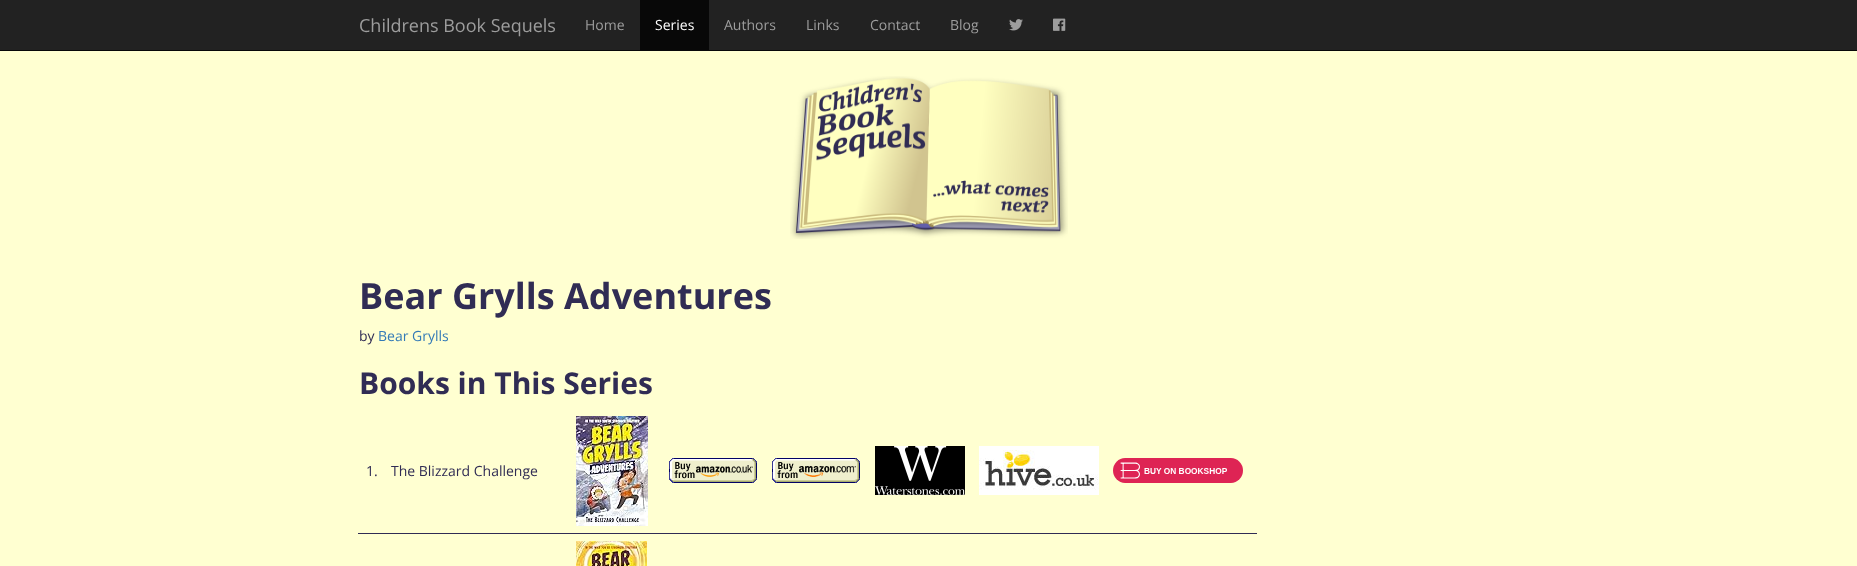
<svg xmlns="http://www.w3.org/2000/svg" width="1857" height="566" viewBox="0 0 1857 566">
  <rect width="100%" height="100%" fill="rgb(255,255,209)"/>
  <rect x="0" y="0" width="1857" height="50" fill="rgb(34,34,34)"/>
  <rect x="0" y="50" width="1857" height="1" fill="rgb(8,8,8)"/>
  <text x="359" y="32" font-family="Open Sans" font-size="18" fill="rgb(157,157,157)">Childrens Book Sequels</text>
  <text x="585" y="30" font-family="Open Sans" font-size="14" fill="rgb(157,157,157)">Home</text>
  <rect x="640" y="0" width="69" height="50" fill="rgb(8,8,8)"/>
  <text x="655" y="30" font-family="Open Sans" font-size="14" fill="rgb(255,255,255)">Series</text>
  <g font-family="Open Sans" font-size="14" fill="rgb(157,157,157)">
    <text x="724" y="30">Authors</text>
    <text x="806" y="30">Links</text>
    <text x="870" y="30">Contact</text>
    <text x="950" y="30">Blog</text>
  </g>
  <image x="1009" y="19" width="14" height="12" href="pic1.png"/>
  <image x="1053" y="18" width="13" height="13" href="pic2.png"/>
  <image x="790" y="76" width="278" height="163" href="pic3.png"/>
  <text x="359" y="309" font-family="Open Sans" font-size="36" font-weight="bold" fill="rgb(48,44,84)">Bear Grylls Adventures</text>
  <text x="359" y="341" font-family="Open Sans" font-size="14" fill="rgb(48,44,84)">by</text>
  <text x="378" y="341" font-family="Open Sans" font-size="14" fill="rgb(51,122,183)">Bear Grylls</text>
  <text x="359" y="394" font-family="Open Sans" font-size="30" font-weight="bold" fill="rgb(48,44,84)">Books in This Series</text>
  <image x="576" y="416" width="72" height="110" href="pic4.png"/>
  <rect x="358" y="533" width="899" height="1" fill="rgb(48,44,84)"/>
  <image x="669" y="458" width="88" height="25" href="pic5.png"/>
  <image x="772" y="458" width="88" height="25" href="pic6.png"/>
  <image x="875" y="446" width="90" height="49" href="pic7.png"/>
  <image x="979" y="446" width="120" height="49" href="pic8.png"/>
  <image x="1113" y="458" width="130" height="25" href="pic9.png"/>
  <g font-family="Open Sans" font-size="14" fill="rgb(48,44,84)">
    <text x="366" y="476">1.</text>
    <text x="391" y="476">The Blizzard Challenge</text>
  </g>
  <image x="576" y="541" width="71" height="25" href="pic10.png"/>
</svg>
